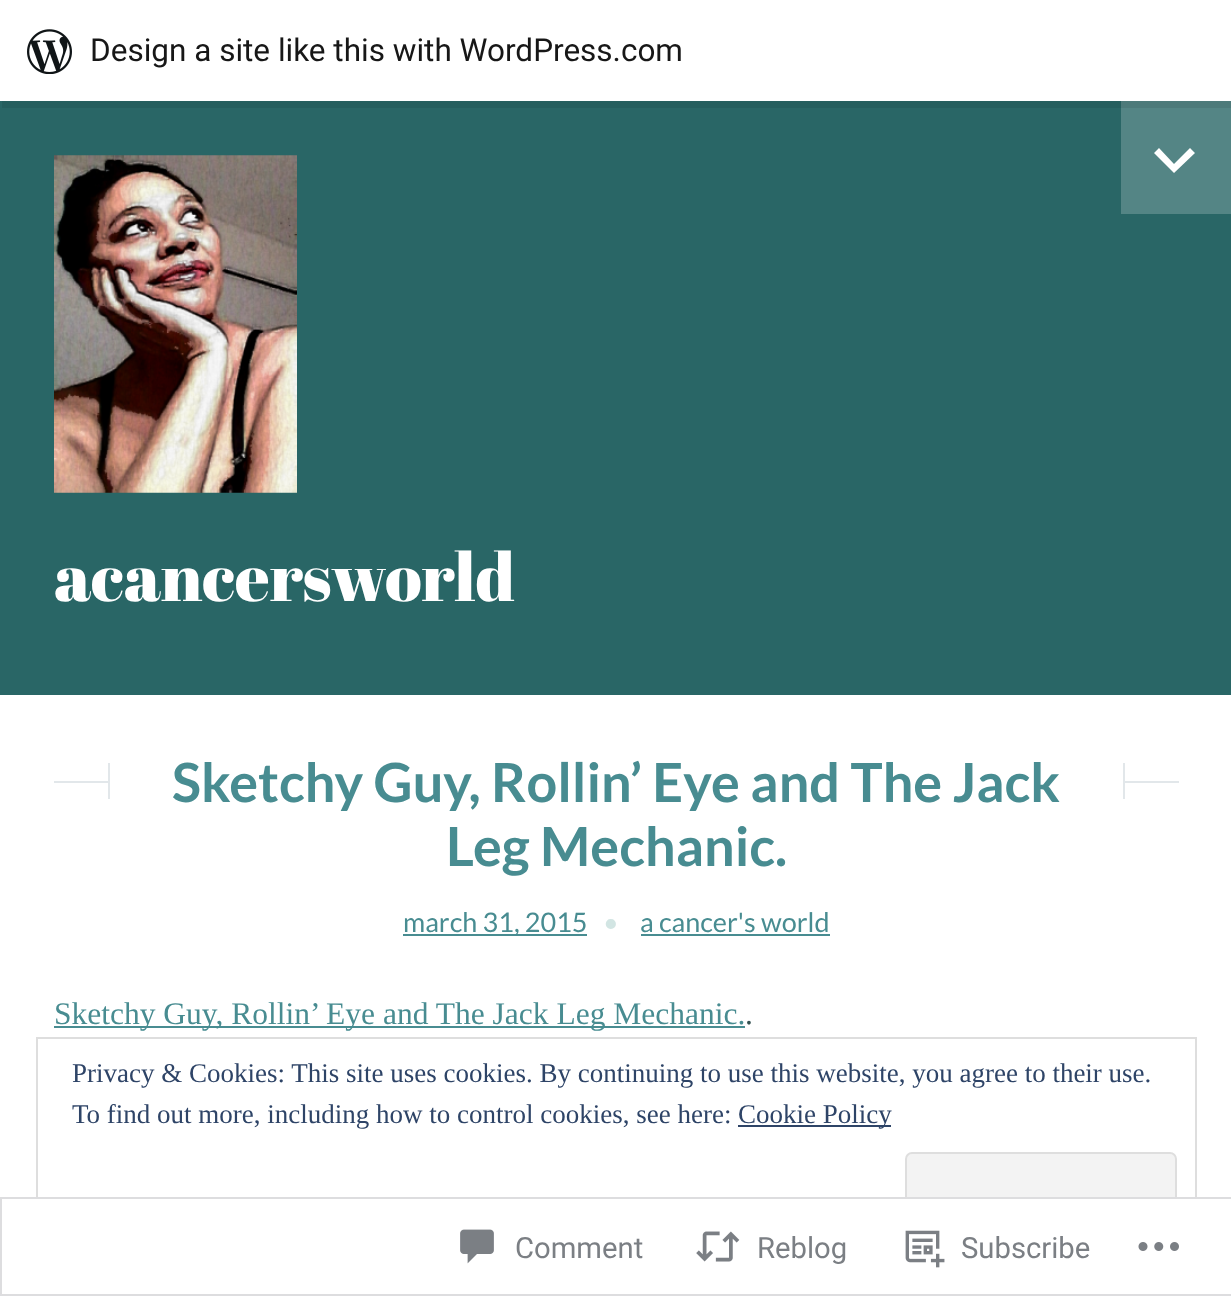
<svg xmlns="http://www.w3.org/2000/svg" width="1231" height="1296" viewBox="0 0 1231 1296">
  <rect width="100%" height="100%" fill="rgb(255,255,255)"/>
  <rect x="0" y="101" width="1231" height="594" fill="rgb(41,102,102)"/>
  <rect x="1121" y="101" width="110" height="113" fill="rgb(84,133,133)"/>
  <path d="M2 101V108H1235V7H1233V101Z" fill="rgba(0,0,0,0.08)"/>
  <image x="27" y="29" width="45" height="45" href="pic1.png"/>
  <text x="90" y="61" font-family="Roboto" font-size="31.5" fill="rgb(23,23,23)">Design a site like this with WordPress.com</text>
  <path d="M1190 148L1195 153L1174 173L1154 153L1159 148L1174 164Z" fill="rgb(255,255,255)"/>
  <image x="54" y="155" width="243" height="338" href="pic2.png"/>
  <text x="54" y="601" font-family="Abril Fatface" font-size="67.5" fill="rgb(255,255,255)">acancersworld</text>
  <rect x="54" y="781" width="1125" height="2" fill="rgb(226,231,234)"/>
  <rect x="110" y="781" width="1013" height="2" fill="rgb(255,255,255)"/>
  <rect x="108" y="763" width="2" height="36" fill="rgb(226,231,234)"/>
  <text x="172" y="802" font-family="Lato" font-size="54" font-weight="bold" fill="rgb(72,140,145)">Sketchy Guy, Rollin’ Eye and The Jack</text>
  <rect x="1123" y="763" width="2" height="36" fill="rgb(226,231,234)"/>
  <text x="446" y="866" font-family="Lato" font-size="54" font-weight="bold" fill="rgb(72,140,145)">Leg Mechanic.</text>
  <rect x="403" y="934" width="184" height="2" fill="rgb(72,140,145)"/>
  <text x="403" y="932" font-family="Lato" font-size="27" fill="rgb(72,140,145)">march 31, 2015</text>
  <text x="603" y="932" font-family="Lato" font-size="27" fill="rgb(210,229,227)">•</text>
  <text x="640" y="932" font-family="Lato" font-size="27" fill="rgb(72,140,145)">a cancer's world</text>
  <rect x="641" y="934" width="189" height="2" fill="rgb(72,140,145)"/>
  <rect x="54" y="1026" width="691" height="2" fill="rgb(72,140,145)"/>
  <text x="54" y="1024" font-family="Liberation Serif" font-size="31.5" fill="rgb(72,140,145)">Sketchy Guy, Rollin’ Eye and The Jack Leg Mechanic.</text>
  <text x="745" y="1024" font-family="Liberation Serif" font-size="31.5" fill="rgb(52,81,81)">.</text>
  <rect x="37" y="1038" width="1159" height="221" fill="none" stroke="rgb(222,222,222)" stroke-width="2"/>
  <g font-family="Liberation Serif" font-size="27" fill="rgb(46,68,103)">
    <text>
      <tspan x="72" y="1082">Privacy &amp; Cookies: This site uses cookies. By continuing to use this website, you agree to their use.</tspan>
      <tspan x="72" y="1123">To find out more, including how to control cookies, see here:</tspan>
    </text>
  </g>
  <rect x="738" y="1125" width="153" height="2" fill="rgb(46,68,103)"/>
  <text x="738" y="1123" font-family="Liberation Serif" font-size="27" fill="rgb(46,68,103)">Cookie Policy</text>
  <rect x="906" y="1153" width="270" height="86" rx="6" fill="rgb(243,243,243)" stroke="rgb(222,222,222)" stroke-width="2"/>
  <rect x="36" y="1197" width="1161" height="63" fill="rgba(255,255,255,0.98)"/>
  <rect x="1" y="1198" width="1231" height="97" fill="none" stroke="rgba(220,220,222,0.98)" stroke-width="2"/>
  <image x="460" y="1229" width="34" height="35" href="pic3.png"/>
  <text x="515" y="1258" font-family="Roboto" font-size="29.25" fill="rgb(123,127,132)">Comment</text>
  <image x="696" y="1231" width="44" height="31" href="pic4.png"/>
  <text x="757" y="1258" font-family="Roboto" font-size="29.25" fill="rgb(123,127,132)">Reblog</text>
  <image x="905" y="1230" width="40" height="38" href="pic5.png"/>
  <text x="961" y="1258" font-family="Roboto" font-size="29.25" fill="rgb(123,127,132)">Subscribe</text>
  <image x="1138" y="1242" width="41" height="9" href="pic6.png"/>
</svg>
